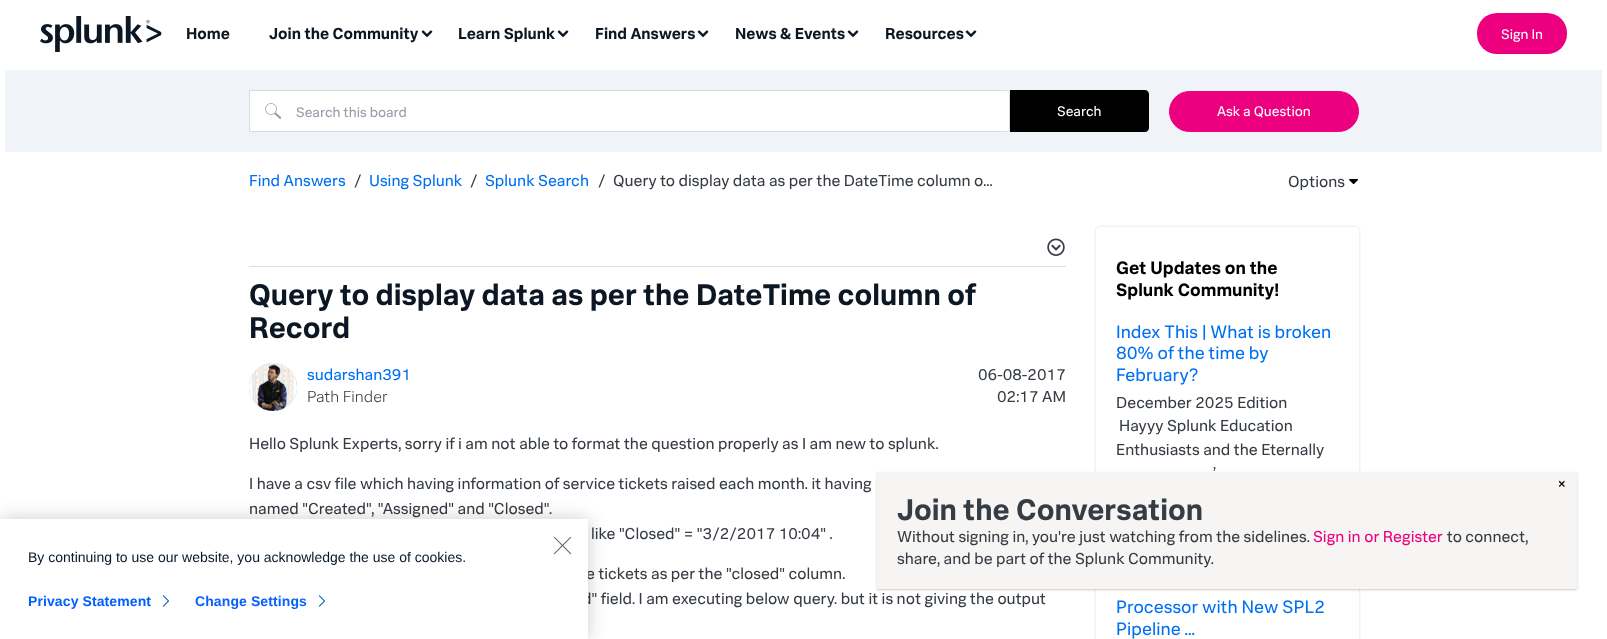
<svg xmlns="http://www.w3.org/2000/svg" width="1607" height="639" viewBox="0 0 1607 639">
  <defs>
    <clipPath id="clip1"><path d="M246 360H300V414H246ZM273 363C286.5 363 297 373.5 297 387C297 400.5 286.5 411 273 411C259.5 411 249 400.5 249 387C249 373.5 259.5 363 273 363Z" clip-rule="evenodd"/></clipPath>
  </defs>
  <rect width="100%" height="100%" fill="rgb(255,255,255)"/>
  <image x="40" y="16" width="122" height="36" href="pic1.png"/>
  <g font-family="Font" font-size="16" font-weight="bold" fill="rgb(12,23,36)">
    <text x="186" y="39">Home</text>
    <text x="269" y="39">Join the Community</text>
  </g>
  <image x="421" y="30" width="12" height="8" href="pic2.png"/>
  <text x="458" y="39" font-family="Font" font-size="16" font-weight="bold" fill="rgb(12,23,36)">Learn Splunk</text>
  <image x="557" y="30" width="12" height="8" href="pic2.png"/>
  <text x="595" y="39" font-family="Font" font-size="16" font-weight="bold" fill="rgb(12,23,36)">Find Answers</text>
  <image x="697" y="30" width="12" height="8" href="pic2.png"/>
  <text x="735" y="39" font-family="Font" font-size="16" font-weight="bold" fill="rgb(12,23,36)">News &amp; Events</text>
  <image x="847" y="30" width="12" height="8" href="pic2.png"/>
  <text x="885" y="39" font-family="Font" font-size="16" font-weight="bold" fill="rgb(12,23,36)">Resources</text>
  <image x="965" y="30" width="12" height="8" href="pic2.png"/>
  <rect x="1477" y="13" width="90" height="41" rx="20" fill="rgb(237,0,128)"/>
  <text x="1501" y="39" font-family="Font" font-size="14" fill="rgb(255,255,255)">Sign In</text>
  <rect x="5" y="70" width="1597" height="82" fill="rgb(240,243,247)"/>
  <path d="M249 90H1006C1008 90 1010 92 1010 94V128C1010 130 1008 132 1006 132H249Z" fill="rgb(255,255,255)"/>
  <image x="265" y="103" width="16" height="16" href="pic3.png"/>
  <path d="M249.5 90.5H1006C1008 90.5 1009.5 92 1009.5 94V128C1009.5 130 1008 131.5 1006 131.5H249.5Z" fill="none" stroke="rgb(213,220,229)"/>
  <text x="296" y="117" font-family="Font" font-size="14" fill="rgb(150,157,170)">Search this board</text>
  <path d="M1010 90H1145C1147 90 1149 92 1149 94V128C1149 130 1147 132 1145 132H1010Z" fill="rgb(0,0,0)"/>
  <text x="1057" y="116" font-family="Font" font-size="14" fill="rgb(255,255,255)">Search</text>
  <rect x="1169.5" y="91.5" width="189" height="40" rx="20" fill="rgb(237,0,128)" stroke="rgb(237,0,128)"/>
  <text x="1217" y="116" font-family="Font" font-size="14" fill="rgb(255,255,255)">Ask a Question</text>
  <text x="249" y="186" font-family="Font" font-size="16" fill="rgb(0,112,243)">Find Answers</text>
  <text x="354" y="186" font-family="Font" font-size="16" fill="rgb(54,60,68)">/</text>
  <text x="369" y="186" font-family="Font" font-size="16" fill="rgb(0,112,243)">Using Splunk</text>
  <text x="470" y="186" font-family="Font" font-size="16" fill="rgb(54,60,68)">/</text>
  <text x="485" y="186" font-family="Font" font-size="16" fill="rgb(0,112,243)">Splunk Search</text>
  <g font-family="Font" font-size="16" fill="rgb(54,60,68)">
    <text x="598" y="186">/</text>
    <text x="613" y="186">Query to display data as per the DateTime column o...</text>
    <text x="1288" y="187">Options</text>
  </g>
  <image x="1349" y="179" width="10" height="6" href="pic4.png"/>
  <rect x="1096" y="227" width="263" height="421" rx="4" fill="rgba(0,0,0,0.15)" filter="blur(1.5px)"/>
  <rect x="1096" y="227" width="263" height="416" rx="4" fill="rgb(255,255,255)"/>
  <rect x="877" y="473" width="700" height="117" fill="rgba(0,0,0,0.2)" filter="blur(1px)"/>
  <rect x="877" y="472" width="700" height="117" fill="rgb(247,244,244)"/>
  <text x="1557" y="489" font-family="Font" font-size="16" fill="rgb(0,0,0)">×</text>
  <text x="897" y="520" font-family="Font" font-size="30" font-weight="bold" fill="rgb(54,60,68)">Join the Conversation</text>
  <text x="897" y="542" font-family="Font" font-size="16" fill="rgb(54,60,68)">Without signing in, you're just watching from the sidelines.</text>
  <text x="1313" y="542" font-family="Font" font-size="16" fill="rgb(237,0,128)">Sign in or Register</text>
  <g font-family="Font" font-size="16" fill="rgb(54,60,68)">
    <text x="1447" y="542">to connect,</text>
    <text x="897" y="564">share, and be part of the Splunk Community.</text>
  </g>
  <rect x="249" y="266" width="817" height="1" fill="rgb(218,221,225)"/>
  <image x="1047" y="238" width="18" height="18" href="pic5.png"/>
  <g font-family="Font" font-size="30" font-weight="bold" fill="rgb(12,23,36)">
    <text>
      <tspan x="249" y="305">Query to display data as per the DateTime column of</tspan>
      <tspan x="249" y="338">Record</tspan>
    </text>
  </g>
  <g clip-path="url(#clip1)">
    <rect x="249" y="363" width="48" height="48" rx="24" fill="rgb(153,153,153)" filter="blur(0.5px)"/>
  </g>
  <image x="252" y="363" width="42" height="48" href="pic6.png"/>
  <text x="307" y="380" font-family="Font" font-size="16" fill="rgb(0,112,243)">sudarshan391</text>
  <text x="307" y="402" font-family="Font" font-size="16" font-weight="300" fill="rgb(54,60,68)">Path Finder</text>
  <g font-family="Font" font-size="16" fill="rgb(54,60,68)">
    <text x="978" y="380">06-08-2017</text>
    <text x="997" y="402">02:17 AM</text>
    <text x="249" y="449">Hello Splunk Experts, sorry if i am not able to format the question properly as I am new to splunk.</text>
    <text>
      <tspan x="249" y="489">I have a csv file which having information of service tickets raised each month. it having</tspan>
      <tspan x="249" y="514">named "Created", "Assigned" and "Closed".</tspan>
    </text>
    <text x="591" y="539">like "Closed" = "3/2/2017 10:04" .</text>
    <text x="586" y="579">e tickets as per the "closed" column.</text>
    <text x="582" y="604">d" field. I am executing below query. but it is not giving the output</text>
  </g>
  <g font-family="Font" font-size="18" font-weight="bold" fill="rgb(0,0,0)">
    <text>
      <tspan x="1116" y="274">Get Updates on the</tspan>
      <tspan x="1116" y="296">Splunk Community!</tspan>
    </text>
  </g>
  <g font-family="Font" font-size="18" fill="rgb(0,112,243)">
    <text>
      <tspan x="1116" y="338">Index This | What is broken</tspan>
      <tspan x="1116" y="359">80% of the time by</tspan>
      <tspan x="1116" y="381">February?</tspan>
    </text>
  </g>
  <g font-family="Font" font-size="16" fill="rgb(54,60,68)">
    <text x="1116" y="408">December 2025 Edition</text>
    <text x="1119" y="431">Hayyy Splunk Education</text>
    <text x="1116" y="455">Enthusiasts and the Eternally</text>
    <text x="1213" y="478">’</text>
  </g>
  <g font-family="Font" font-size="18" fill="rgb(0,112,243)">
    <text>
      <tspan x="1116" y="613">Processor with New SPL2</tspan>
      <tspan x="1116" y="635">Pipeline ...</tspan>
    </text>
  </g>
  <rect x="0" y="519" width="588" height="120" fill="rgba(0,0,0,0.2)" filter="blur(9px)"/>
  <rect x="0" y="519" width="588" height="120" fill="rgb(255,255,255)"/>
  <image x="553" y="536" width="19" height="19" href="pic7.png"/>
  <text x="28" y="562" font-family="Liberation Sans" font-size="14" fill="rgb(7,24,45)">By continuing to use our website, you acknowledge the use of cookies.</text>
  <text x="28" y="606" font-family="Liberation Sans" font-size="14" font-weight="bold" letter-spacing="0.1" fill="rgb(0,96,255)">Privacy Statement</text>
  <image x="162" y="595" width="7" height="12" href="pic8.png"/>
  <text x="195" y="606" font-family="Liberation Sans" font-size="14" font-weight="bold" letter-spacing="0.1" fill="rgb(10,96,255)">Change Settings</text>
  <image x="318" y="595" width="7" height="12" href="pic8.png"/>
</svg>
